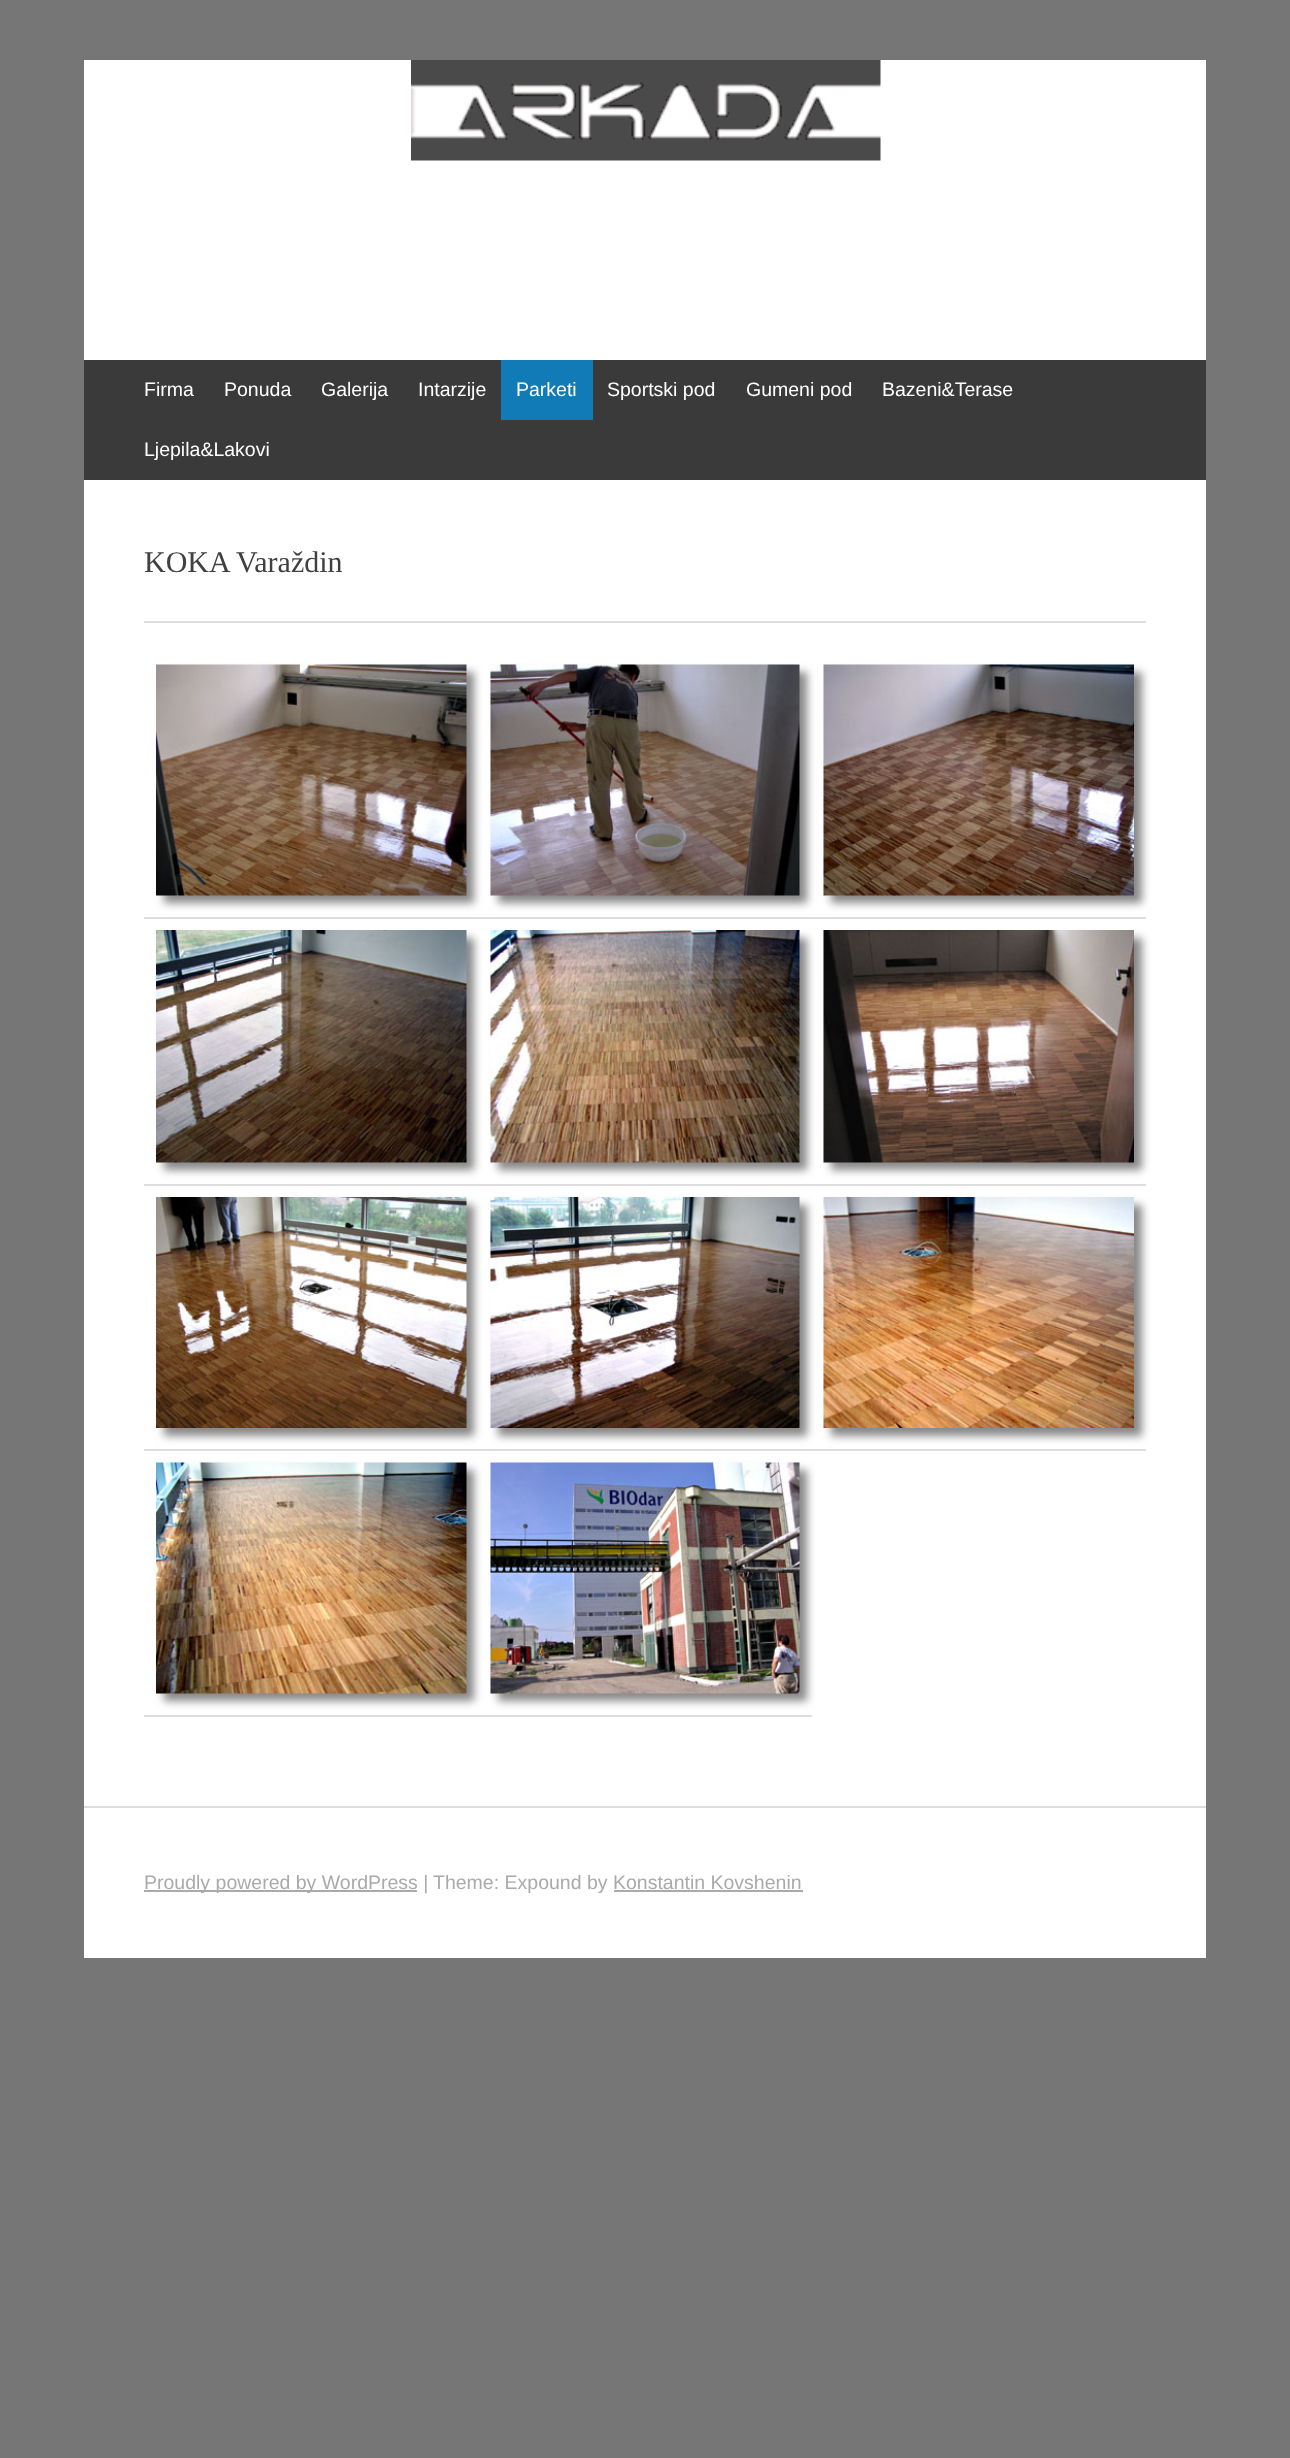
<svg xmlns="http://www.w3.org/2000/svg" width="1290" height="2458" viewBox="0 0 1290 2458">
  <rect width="100%" height="100%" fill="rgb(118,118,118)"/>
  <rect x="84" y="60" width="1122" height="1898" fill="rgb(255,255,255)"/>
  <image x="411" y="60" width="470" height="101" href="pic1.png"/>
  <rect x="84" y="360" width="1122" height="120" fill="rgb(58,58,58)"/>
  <g font-family="Liberation Sans" font-size="19.5" fill="rgb(255,255,255)">
    <text x="144" y="396">Firma</text>
    <text x="224" y="396">Ponuda</text>
    <text x="321" y="396">Galerija</text>
    <text x="418" y="396">Intarzije</text>
  </g>
  <rect x="501" y="360" width="92" height="60" fill="rgb(17,123,184)"/>
  <g font-family="Liberation Sans" font-size="19.5" fill="rgb(255,255,255)">
    <text x="516" y="396">Parketi</text>
    <text x="607" y="396">Sportski pod</text>
    <text x="746" y="396">Gumeni pod</text>
    <text x="882" y="396">Bazeni&amp;Terase</text>
    <text x="144" y="456">Ljepila&amp;Lakovi</text>
  </g>
  <rect x="84" y="1806" width="1122" height="2" fill="rgb(221,221,221)"/>
  <text x="144" y="572" font-family="Liberation Serif" font-size="30" fill="rgb(64,64,64)">KOKA Varaždin</text>
  <rect x="144" y="621" width="1002" height="2" fill="rgb(221,221,221)"/>
  <rect x="144" y="917" width="1002" height="2" fill="rgb(221,221,221)"/>
  <rect x="164" y="672" width="310" height="231" fill="rgb(136,136,136)" filter="blur(4px)"/>
  <image x="156" y="664" width="311" height="232" href="pic2.png"/>
  <rect x="498" y="672" width="309" height="231" fill="rgb(136,136,136)" filter="blur(4px)"/>
  <image x="490" y="664" width="310" height="232" href="pic3.png"/>
  <rect x="831" y="672" width="311" height="231" fill="rgb(136,136,136)" filter="blur(4px)"/>
  <image x="823" y="664" width="311" height="232" href="pic4.png"/>
  <rect x="144" y="1184" width="1002" height="2" fill="rgb(221,221,221)"/>
  <rect x="164" y="938" width="310" height="232" fill="rgb(136,136,136)" filter="blur(4px)"/>
  <image x="156" y="930" width="311" height="233" href="pic5.png"/>
  <rect x="498" y="938" width="309" height="232" fill="rgb(136,136,136)" filter="blur(4px)"/>
  <image x="490" y="930" width="310" height="233" href="pic6.png"/>
  <rect x="831" y="938" width="311" height="232" fill="rgb(136,136,136)" filter="blur(4px)"/>
  <image x="823" y="930" width="311" height="233" href="pic7.png"/>
  <rect x="144" y="1449" width="1002" height="2" fill="rgb(221,221,221)"/>
  <rect x="164" y="1205" width="310" height="231" fill="rgb(136,136,136)" filter="blur(4px)"/>
  <image x="156" y="1197" width="311" height="231" href="pic8.png"/>
  <rect x="498" y="1205" width="309" height="231" fill="rgb(136,136,136)" filter="blur(4px)"/>
  <image x="490" y="1197" width="310" height="231" href="pic9.png"/>
  <rect x="831" y="1205" width="311" height="231" fill="rgb(136,136,136)" filter="blur(4px)"/>
  <image x="823" y="1197" width="311" height="231" href="pic10.png"/>
  <rect x="144" y="1715" width="668" height="2" fill="rgb(221,221,221)"/>
  <rect x="164" y="1470" width="310" height="231" fill="rgb(136,136,136)" filter="blur(4px)"/>
  <image x="156" y="1462" width="311" height="232" href="pic11.png"/>
  <rect x="498" y="1470" width="309" height="231" fill="rgb(136,136,136)" filter="blur(4px)"/>
  <image x="490" y="1462" width="310" height="232" href="pic12.png"/>
  <rect x="144" y="1890" width="273" height="2" fill="rgb(170,170,170)"/>
  <g font-family="Liberation Sans" font-size="19.5" fill="rgb(170,170,170)">
    <text x="144" y="1889">Proudly powered by WordPress |</text>
    <text x="433" y="1889">Theme: Expound by Konstantin Kovshenin</text>
  </g>
  <rect x="614" y="1890" width="189" height="2" fill="rgb(170,170,170)"/>
</svg>
